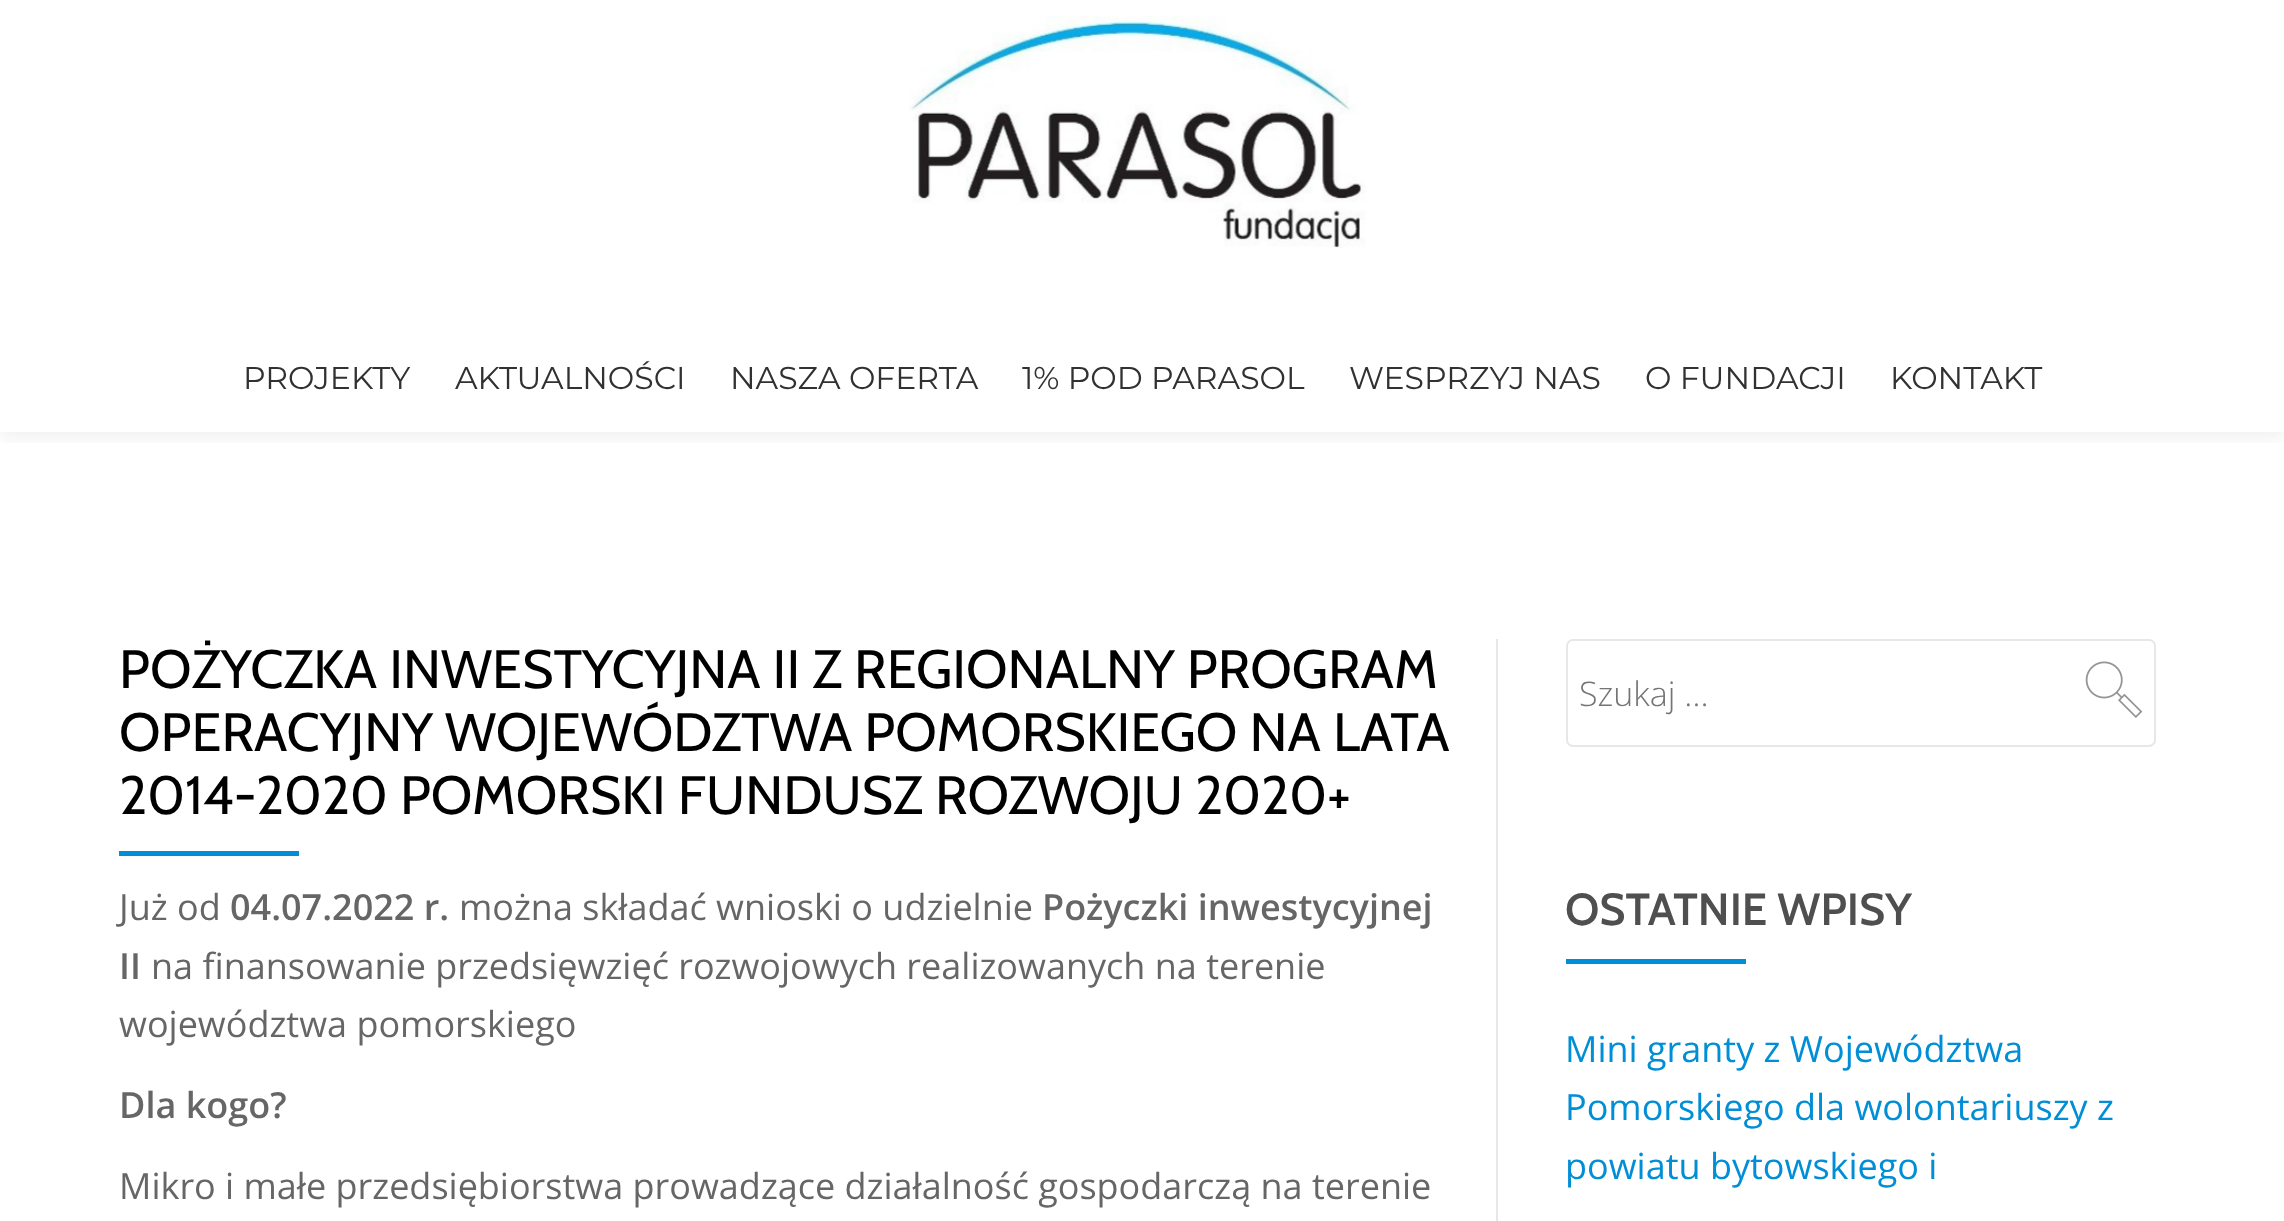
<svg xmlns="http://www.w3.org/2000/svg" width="2284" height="1221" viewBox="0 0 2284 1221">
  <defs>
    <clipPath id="clip1"><rect x="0" y="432" width="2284" height="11"/></clipPath>
  </defs>
  <rect width="100%" height="100%" fill="rgb(255,255,255)"/>
  <g clip-path="url(#clip1)">
    <rect x="0" y="5" width="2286" height="432" fill="rgba(50,50,50,0.08)" filter="blur(9px)"/>
  </g>
  <image x="909" y="16" width="457" height="232" href="pic1.png"/>
  <g font-family="Montserrat" font-size="31.5" font-weight="100" fill="rgb(49,49,49)">
    <text x="243" y="389">PROJEKTY</text>
    <text x="455" y="389">AKTUALNOŚCI</text>
    <text x="730" y="389">NASZA OFERTA</text>
    <text x="1022" y="389">1% POD PARASOL</text>
    <text x="1349" y="389">WESPRZYJ NAS</text>
    <text x="1645" y="389">O FUNDACJI</text>
    <text x="1890" y="389">KONTAKT</text>
  </g>
  <g font-family="Cabin" font-size="54" fill="rgb(0,0,0)">
    <text>
      <tspan x="119" y="688">POŻYCZKA INWESTYCYJNA II Z REGIONALNY PROGRAM</tspan>
      <tspan x="119" y="751">OPERACYJNY WOJEWÓDZTWA POMORSKIEGO NA LATA</tspan>
      <tspan x="119" y="814">2014-2020 POMORSKI FUNDUSZ ROZWOJU 2020+</tspan>
    </text>
  </g>
  <rect x="119" y="851" width="180" height="5" fill="rgb(0,142,214)"/>
  <text x="119" y="920" font-family="Open Sans" font-size="36" fill="rgb(102,102,102)">Już od</text>
  <text x="230" y="920" font-family="Open Sans" font-size="36" font-weight="600" fill="rgb(102,102,102)">04.07.2022 r.</text>
  <text x="459" y="920" font-family="Open Sans" font-size="36" fill="rgb(102,102,102)">można składać wnioski o udzielnie</text>
  <g font-family="Open Sans" font-size="36" font-weight="600" fill="rgb(102,102,102)">
    <text x="1042" y="920">Pożyczki inwestycyjnej</text>
    <text x="119" y="979">II</text>
  </g>
  <g font-family="Open Sans" font-size="36" fill="rgb(102,102,102)">
    <text x="151" y="979">na finansowanie przedsięwzięć rozwojowych realizowanych na terenie</text>
    <text x="119" y="1037">województwa pomorskiego</text>
  </g>
  <text x="119" y="1118" font-family="Open Sans" font-size="36" font-weight="600" fill="rgb(102,102,102)">Dla kogo?</text>
  <text x="119" y="1199" font-family="Open Sans" font-size="36" fill="rgb(102,102,102)">Mikro i małe przedsiębiorstwa prowadzące działalność gospodarczą na terenie</text>
  <rect x="1496" y="639" width="2" height="582" fill="rgb(231,231,231)"/>
  <rect x="1567" y="640" width="588" height="106" rx="6" fill="none" stroke="rgb(231,231,231)" stroke-width="2"/>
  <text x="1579" y="706" font-family="Open Sans" font-size="34" font-weight="300" fill="rgb(117,117,117)">Szukaj …</text>
  <image x="2085" y="661" width="58" height="57" href="pic2.png"/>
  <text x="1565" y="925" font-family="Cabin" font-size="45" font-weight="600" fill="rgb(79,79,79)">OSTATNIE WPISY</text>
  <rect x="1566" y="959" width="180" height="5" fill="rgb(0,142,214)"/>
  <g font-family="Open Sans" font-size="36" fill="rgb(0,142,214)">
    <text>
      <tspan x="1565" y="1062">Mini granty z Województwa</tspan>
      <tspan x="1565" y="1120">Pomorskiego dla wolontariuszy z</tspan>
      <tspan x="1565" y="1179">powiatu bytowskiego i</tspan>
    </text>
  </g>
</svg>
